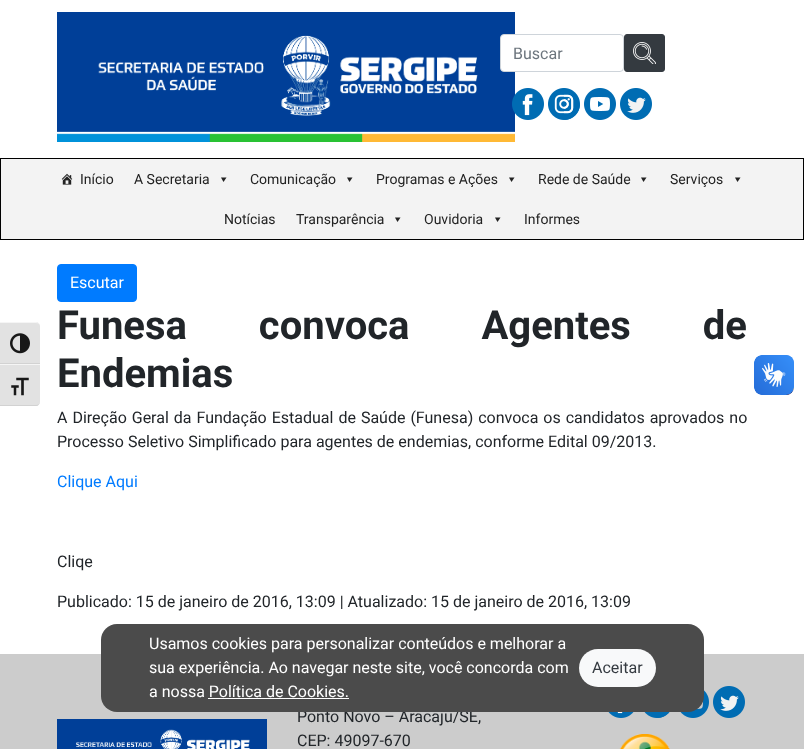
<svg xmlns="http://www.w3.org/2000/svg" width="804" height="749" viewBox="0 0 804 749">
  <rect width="100%" height="100%" fill="rgb(255,255,255)"/>
  <image x="57" y="12" width="458" height="130" href="pic1.png"/>
  <rect x="500.5" y="34.5" width="123" height="37" rx="3.5" fill="rgb(255,255,255)" stroke="rgb(206,212,218)"/>
  <text x="513" y="59" font-family="Roboto" font-size="16" fill="rgb(108,117,125)">Buscar</text>
  <rect x="624.5" y="34.5" width="40" height="37" rx="2.5" fill="rgb(52,58,64)" stroke="rgb(52,58,64)"/>
  <image x="633" y="42" width="23" height="22" href="pic2.png"/>
  <image x="512" y="88" width="32" height="32" href="pic3.png"/>
  <image x="548" y="88" width="32" height="32" href="pic4.png"/>
  <image x="584" y="88" width="32" height="32" href="pic5.png"/>
  <image x="620" y="88" width="32" height="32" href="pic6.png"/>
  <rect x="0.5" y="158.5" width="803" height="81" fill="rgb(243,243,243)" stroke="rgb(0,0,0)"/>
  <image x="61" y="173" width="12" height="12" href="pic7.png"/>
  <g font-family="Roboto" font-size="14" fill="rgb(34,34,34)">
    <text x="80" y="184">Início</text>
    <text x="134" y="184">A Secretaria</text>
  </g>
  <path d="M226.5 177.5L223.5 182L221 177.5Z" fill="rgb(34,34,34)"/>
  <text x="250" y="184" font-family="Roboto" font-size="14" fill="rgb(34,34,34)">Comunicação</text>
  <path d="M352.5 177.5L349.5 182L347 177.5Z" fill="rgb(34,34,34)"/>
  <text x="376" y="184" font-family="Roboto" font-size="14" fill="rgb(34,34,34)">Programas e Ações</text>
  <path d="M514.5 177.5L511.5 182L509 177.5Z" fill="rgb(34,34,34)"/>
  <text x="538" y="184" font-family="Roboto" font-size="14" fill="rgb(34,34,34)">Rede de Saúde</text>
  <path d="M646.5 177.5L643.5 182L641 177.5Z" fill="rgb(34,34,34)"/>
  <text x="670" y="184" font-family="Roboto" font-size="14" fill="rgb(34,34,34)">Serviços</text>
  <path d="M740.5 177.5L737.5 182L735 177.5Z" fill="rgb(34,34,34)"/>
  <g font-family="Roboto" font-size="14" fill="rgb(34,34,34)">
    <text x="224" y="224">Notícias</text>
    <text x="296" y="224">Transparência</text>
  </g>
  <path d="M400.5 217.5L397.5 222L395 217.5Z" fill="rgb(34,34,34)"/>
  <text x="424" y="224" font-family="Roboto" font-size="14" fill="rgb(34,34,34)">Ouvidoria</text>
  <path d="M500.5 217.5L497.5 222L495 217.5Z" fill="rgb(34,34,34)"/>
  <text x="524" y="224" font-family="Roboto" font-size="14" fill="rgb(34,34,34)">Informes</text>
  <path d="M0 322H36C38 322 40 324 40 326V364H0Z" fill="rgb(226,226,226)"/>
  <path d="M0 322V323H36C38 323 40 324 40 326C40 324 38 322 36 322Z" fill="rgb(245,245,245)"/>
  <rect x="0" y="363" width="40" height="1" fill="rgb(210,210,210)"/>
  <image x="10" y="333" width="20" height="21" href="pic8.png"/>
  <path d="M0 364H40V402C40 404 38 406 36 406H0Z" fill="rgb(226,226,226)"/>
  <rect x="0" y="364" width="40" height="1" fill="rgb(245,245,245)"/>
  <path d="M0 405V406H36C38 406 40 404 40 402C40 404 38 405 36 405Z" fill="rgb(210,210,210)"/>
  <image x="11" y="377" width="18" height="19" href="pic9.png"/>
  <rect x="57.5" y="264.5" width="79" height="37" rx="3.5" fill="rgb(0,123,255)" stroke="rgb(0,123,255)"/>
  <text x="70" y="288" font-family="Roboto" font-size="16" fill="rgb(255,255,255)">Escutar</text>
  <g font-family="Roboto" font-size="40" font-weight="bold" fill="rgb(33,37,41)">
    <text>
      <tspan x="57" y="339" word-spacing="62">Funesa convoca Agentes de</tspan>
      <tspan x="57" y="387">Endemias</tspan>
    </text>
  </g>
  <g font-family="Roboto" font-size="16" fill="rgb(33,37,41)">
    <text>
      <tspan x="57" y="423" word-spacing="1">A Direção Geral da Fundação Estadual de Saúde (Funesa) convoca os candidatos aprovados no</tspan>
      <tspan x="57" y="447">Processo Seletivo Simplificado para agentes de endemias, conforme Edital 09/2013.</tspan>
    </text>
  </g>
  <text x="57" y="487" font-family="Roboto" font-size="16" fill="rgb(0,123,255)">Clique Aqui</text>
  <g font-family="Roboto" font-size="16" fill="rgb(33,37,41)">
    <text x="57" y="567">Cliqe</text>
    <text x="57" y="607">Publicado: 15 de janeiro de 2016, 13:09 | Atualizado: 15 de janeiro de 2016, 13:09</text>
  </g>
  <image x="754" y="355" width="40" height="40" href="pic10.png"/>
  <image x="754" y="355" width="40" height="40" href="pic11.png"/>
  <rect x="0" y="654" width="804" height="95" fill="rgb(204,204,204)"/>
  <text x="297" y="722" font-family="Roboto" font-size="16" fill="rgb(33,37,41)">Ponto Novo – Aracaju/SE,</text>
  <image x="680" y="690" width="29" height="28" href="pic15.png"/>
  <rect x="101" y="624" width="603" height="88" rx="16" fill="rgb(75,75,75)"/>
  <g font-family="Roboto" font-size="16" fill="rgb(255,255,255)">
    <text>
      <tspan x="149" y="649">Usamos cookies para personalizar conteúdos e melhorar a</tspan>
      <tspan x="149" y="673">sua experiência. Ao navegar neste site, você concorda com</tspan>
      <tspan x="149" y="697">a nossa Política de Cookies.</tspan>
    </text>
  </g>
  <rect x="208" y="698" width="141" height="1" fill="rgb(255,255,255)"/>
  <rect x="579" y="649" width="77" height="38" rx="19" fill="rgb(248,249,250)"/>
  <text x="592" y="673" font-family="Roboto" font-size="16" fill="rgb(52,58,64)">Aceitar</text>
  <image x="57" y="719" width="210" height="30" href="pic12.png"/>
  <text x="297" y="746" font-family="Roboto" font-size="16" fill="rgb(33,37,41)">CEP: 49097-670</text>
  <image x="608" y="712" width="26" height="6" href="pic13.png"/>
  <image x="644" y="712" width="26" height="6" href="pic14.png"/>
  <image x="713" y="686" width="32" height="32" href="pic16.png"/>
  <image x="619" y="734" width="51" height="15" href="pic17.png"/>
</svg>
